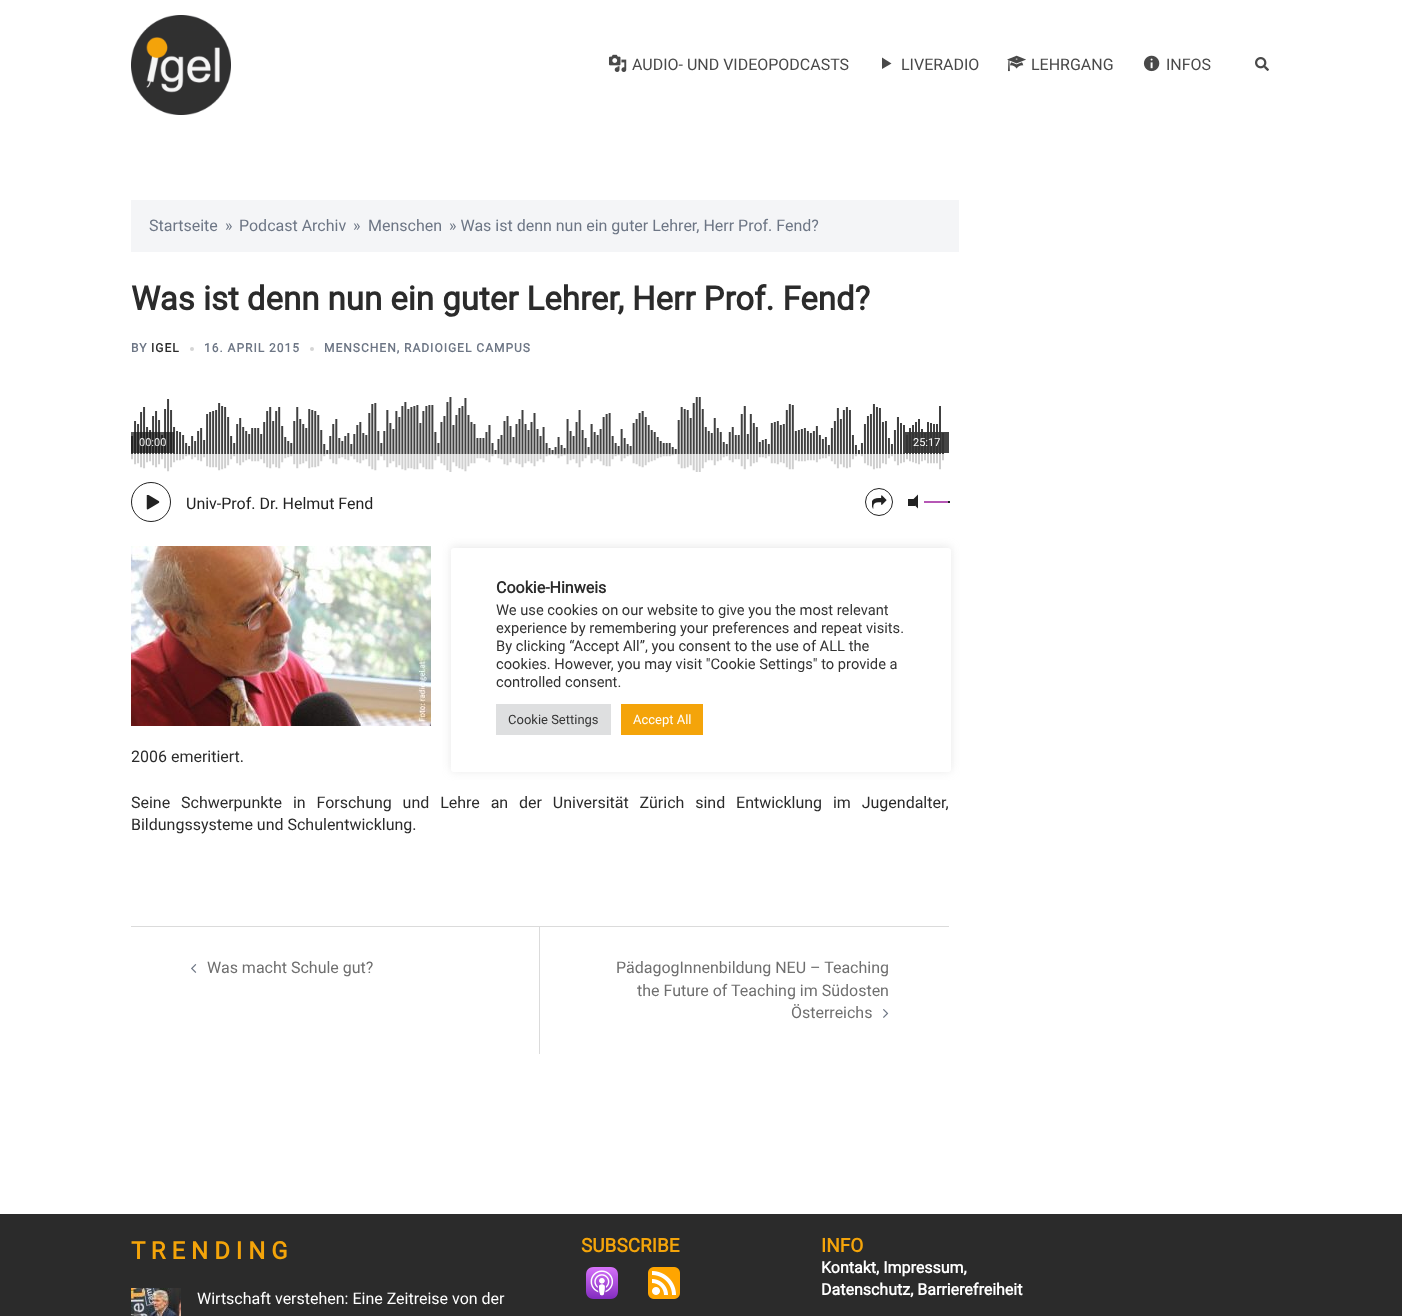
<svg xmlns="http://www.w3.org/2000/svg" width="1402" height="1316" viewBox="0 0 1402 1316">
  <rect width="100%" height="100%" fill="rgb(255,255,255)"/>
  <image x="131" y="15" width="100" height="100" href="pic1.png"/>
  <image x="608" y="54" width="19" height="18" href="pic2.png"/>
  <text x="632" y="70" font-family="Roboto" font-size="16" fill="rgb(73,73,73)">AUDIO- UND VIDEOPODCASTS</text>
  <path d="M882 57.5L891.5 63.5L882 69Z" fill="rgb(73,73,73)"/>
  <text x="901" y="70" font-family="Roboto" font-size="16" fill="rgb(73,73,73)">LIVERADIO</text>
  <image x="1007" y="55" width="19" height="17" href="pic3.png"/>
  <text x="1031" y="70" font-family="Roboto" font-size="16" fill="rgb(73,73,73)">LEHRGANG</text>
  <image x="1143" y="55" width="17" height="17" href="pic4.png"/>
  <text x="1166" y="70" font-family="Roboto" font-size="16" fill="rgb(73,73,73)">INFOS</text>
  <image x="1255" y="57" width="14" height="14" href="pic5.png"/>
  <rect x="131" y="200" width="828" height="52" fill="rgb(244,245,247)"/>
  <g font-family="Roboto" font-size="16" fill="rgb(109,118,133)">
    <text x="149" y="231">Startseite</text>
    <text x="225" y="231">»</text>
    <text x="239" y="231">Podcast Archiv</text>
    <text x="353" y="231">»</text>
    <text x="368" y="231">Menschen</text>
    <text x="449" y="231">» Was ist denn nun ein guter Lehrer, Herr Prof. Fend?</text>
  </g>
  <text x="131" y="310" font-family="Roboto" font-size="33" font-weight="bold" fill="rgb(43,43,43)">Was ist denn nun ein guter Lehrer, Herr Prof. Fend?</text>
  <text x="131" y="352" font-family="Roboto" font-size="12" font-weight="bold" letter-spacing="1" fill="rgb(109,118,133)">BY</text>
  <text x="151" y="352" font-family="Roboto" font-size="12" font-weight="bold" letter-spacing="1" fill="rgb(43,43,43)">IGEL</text>
  <circle cx="192" cy="349" r="2" fill="rgb(213,213,213)"/>
  <text x="204" y="352" font-family="Roboto" font-size="12" font-weight="bold" letter-spacing="1" fill="rgb(109,118,133)">16. APRIL 2015</text>
  <circle cx="312" cy="349" r="2" fill="rgb(213,213,213)"/>
  <text x="324" y="352" font-family="Roboto" font-size="12" font-weight="bold" letter-spacing="1" fill="rgb(109,118,133)">MENSCHEN, RADIOIGEL CAMPUS</text>
  <image x="131" y="397" width="813" height="75" href="pic6.png"/>
  <rect x="131" y="432" width="43" height="21" fill="rgba(21,21,21,0.7)"/>
  <text x="139" y="446" font-family="Roboto" font-size="11" fill="rgb(238,238,238)">00:00</text>
  <rect x="905" y="432" width="44" height="21" fill="rgba(50,50,50,0.91)"/>
  <text x="913" y="446" font-family="Roboto" font-size="11" fill="rgb(255,255,255)">25:17</text>
  <circle cx="151" cy="502" r="19.5" fill="none" stroke="rgb(34,34,34)"/>
  <image x="146" y="495" width="14" height="15" href="pic7.png"/>
  <text x="186" y="509" font-family="Roboto" font-size="16" fill="rgb(34,34,34)">Univ-Prof. Dr. Helmut Fend</text>
  <circle cx="879" cy="502" r="13.5" fill="none" stroke="rgb(34,34,34)"/>
  <image x="872" y="495" width="15" height="14" href="pic8.png"/>
  <rect x="908" y="499" width="7" height="7" fill="rgb(34,34,34)"/>
  <path d="M918 494.5V508.5L911 501.5Z" fill="rgb(34,34,34)"/>
  <rect x="924" y="501" width="24" height="2" fill="rgb(182,87,181)"/>
  <rect x="948" y="501" width="2" height="2" fill="rgb(34,34,34)"/>
  <image x="131" y="546" width="300" height="180" href="pic9.png"/>
  <g font-family="Roboto" font-size="16" fill="rgb(43,43,43)">
    <text x="131" y="762">2006 emeritiert.</text>
    <text>
      <tspan x="131" y="808" word-spacing="6.9">Seine Schwerpunkte in Forschung und Lehre an der Universität Zürich sind Entwicklung im Jugendalter,</tspan>
      <tspan x="131" y="830">Bildungssysteme und Schulentwicklung.</tspan>
    </text>
  </g>
  <rect x="131" y="926" width="818" height="1" fill="rgb(219,219,219)"/>
  <rect x="539" y="927" width="1" height="127" fill="rgb(219,219,219)"/>
  <image x="191" y="964" width="6" height="9" href="pic10.png"/>
  <g font-family="Roboto" font-size="16" fill="rgb(111,111,111)">
    <text x="207" y="973">Was macht Schule gut?</text>
    <text x="616" y="973">PädagogInnenbildung NEU – Teaching</text>
    <text x="637" y="996">the Future of Teaching im Südosten</text>
    <text x="791" y="1018">Österreichs</text>
  </g>
  <image x="883" y="1009" width="6" height="9" href="pic11.png"/>
  <rect x="0" y="1214" width="1402" height="102" fill="rgb(43,43,43)"/>
  <text x="131" y="1259" font-family="Roboto" font-size="24" font-weight="bold" fill="rgb(244,164,10)">T R E N D I N G</text>
  <image x="131" y="1288" width="50" height="28" href="pic12.png"/>
  <text x="197" y="1304" font-family="Roboto" font-size="16" fill="rgb(255,255,255)">Wirtschaft verstehen: Eine Zeitreise von der</text>
  <text x="581" y="1252" font-family="Roboto" font-size="19" font-weight="bold" fill="rgb(244,164,10)">SUBSCRIBE</text>
  <image x="586" y="1267" width="32" height="32" href="pic13.png"/>
  <image x="648" y="1267" width="32" height="32" href="pic14.png"/>
  <text x="821" y="1252" font-family="Roboto" font-size="19" font-weight="bold" fill="rgb(244,164,10)">INFO</text>
  <g font-family="Roboto" font-size="16" font-weight="bold" fill="rgb(255,255,255)">
    <text>
      <tspan x="821" y="1273">Kontakt, Impressum,</tspan>
      <tspan x="821" y="1295">Datenschutz, Barrierefreiheit</tspan>
    </text>
  </g>
  <rect x="451" y="547" width="500" height="224" rx="3" fill="rgba(172,171,171,0.3)" filter="blur(5px)"/>
  <rect x="451" y="548" width="500" height="224" rx="3" fill="rgb(255,255,255)"/>
  <text x="496" y="593" font-family="Roboto" font-size="16" font-weight="bold" fill="rgb(43,43,43)">Cookie-Hinweis</text>
  <g font-family="Roboto" font-size="14.7" fill="rgb(51,51,51)">
    <text>
      <tspan x="496" y="615">We use cookies on our website to give you the most relevant</tspan>
      <tspan x="496" y="633">experience by remembering your preferences and repeat visits.</tspan>
      <tspan x="496" y="651">By clicking “Accept All”, you consent to the use of ALL the</tspan>
      <tspan x="496" y="669">cookies. However, you may visit "Cookie Settings" to provide a</tspan>
      <tspan x="496" y="687">controlled consent.</tspan>
    </text>
  </g>
  <rect x="496" y="704" width="115" height="31" fill="rgb(222,223,224)"/>
  <text x="508" y="724" font-family="Roboto" font-size="13" fill="rgb(51,51,51)">Cookie Settings</text>
  <rect x="621" y="704" width="82" height="31" fill="rgb(244,164,10)"/>
  <text x="633" y="724" font-family="Roboto" font-size="13" fill="rgb(255,255,255)">Accept All</text>
</svg>
